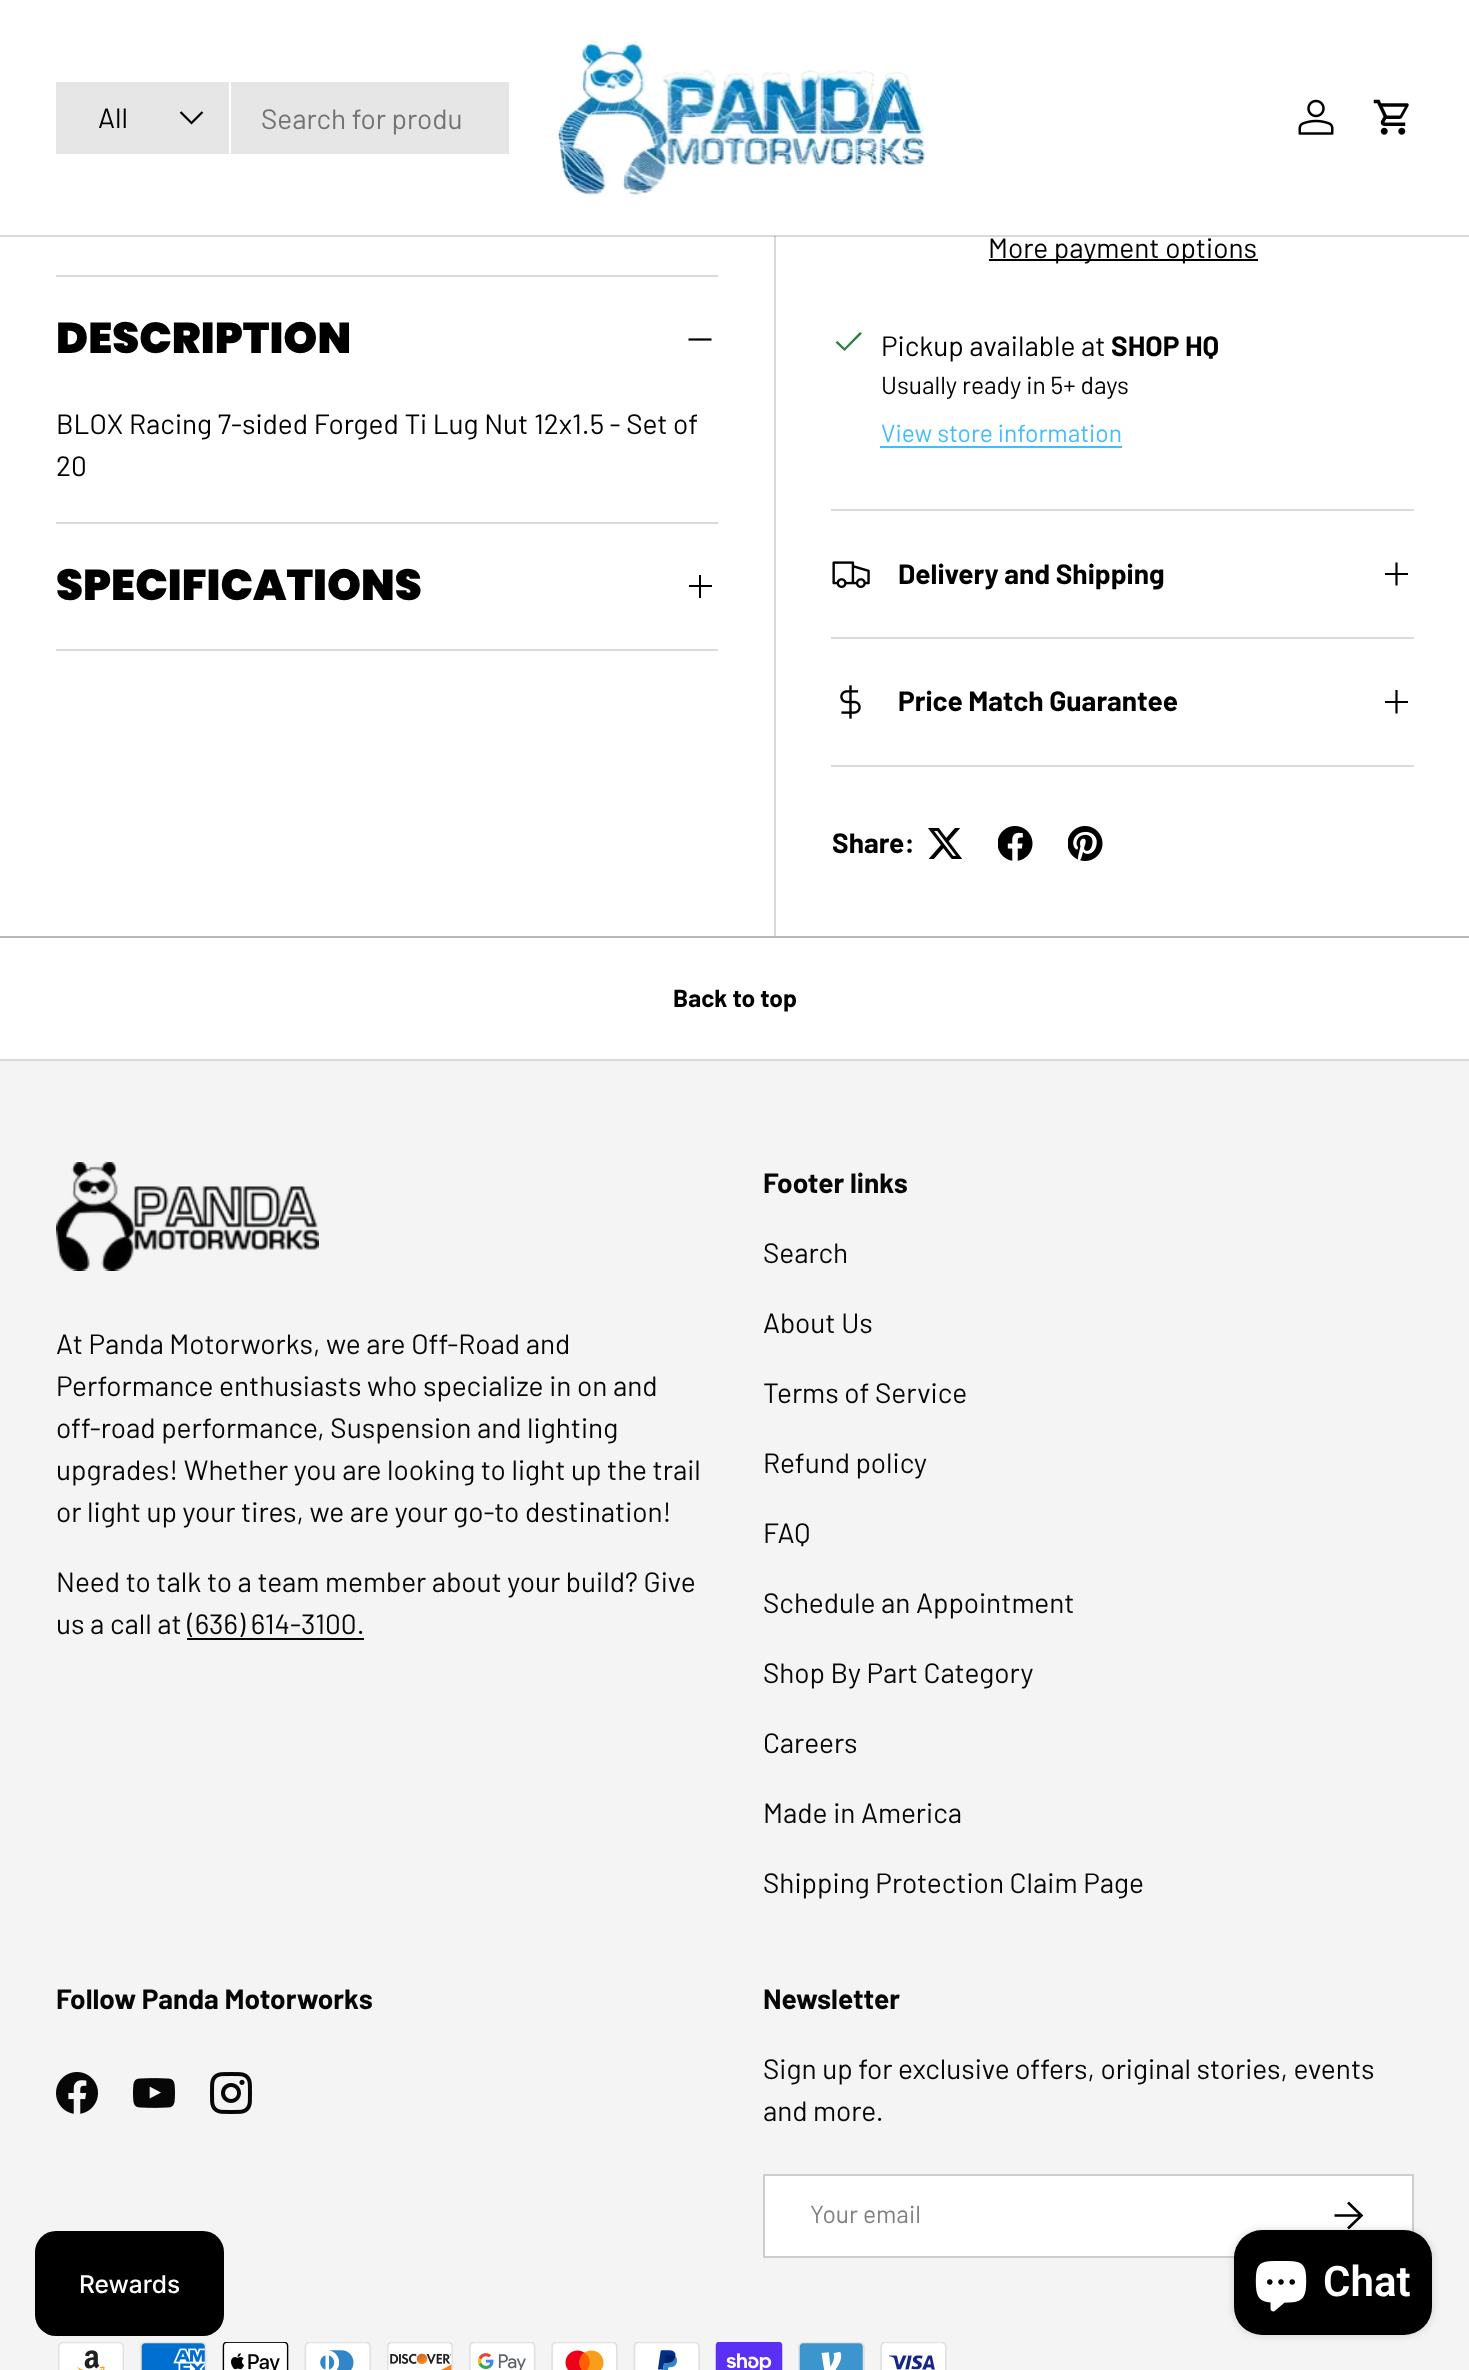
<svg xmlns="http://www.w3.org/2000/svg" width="1469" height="2370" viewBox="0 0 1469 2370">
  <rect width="100%" height="100%" fill="rgb(255,255,255)"/>
  <rect x="0" y="235" width="1469" height="2" fill="rgb(217,217,217)"/>
  <rect x="56" y="82" width="453" height="72" fill="rgb(230,230,230)"/>
  <rect x="229" y="82" width="2" height="72" fill="rgb(255,255,255)"/>
  <text x="98" y="128" font-family="Barlow" font-size="28" fill="rgb(0,0,0)">All</text>
  <path d="M202.5 112L191.5 123L180.5 112" fill="none" stroke="rgb(0,0,0)" stroke-width="2.2"/>
  <text x="261" y="129" font-family="Barlow" font-size="28" fill="rgb(115,115,115)">Search for produ</text>
  <image x="557" y="41" width="368" height="154" href="pic1.png"/>
  <image x="1298" y="99" width="36" height="36" href="pic2.png"/>
  <image x="1373" y="99" width="36" height="36" href="pic3.png"/>
  <rect x="56" y="275" width="662" height="2" fill="rgb(217,217,217)"/>
  <rect x="56" y="522" width="662" height="2" fill="rgb(217,217,217)"/>
  <text x="56" y="353" font-family="Poppins" font-size="43.25" font-weight="900" fill="rgb(0,0,0)">DESCRIPTION</text>
  <path d="M688.5 339.5H711.5" fill="none" stroke="rgb(0,0,0)" stroke-width="2.2"/>
  <g font-family="Barlow" font-size="28" fill="rgb(0,0,0)">
    <text>
      <tspan x="56" y="434">BLOX Racing 7-sided Forged Ti Lug Nut 12x1.5 - Set of</tspan>
      <tspan x="56" y="476">20</tspan>
    </text>
  </g>
  <rect x="56" y="649" width="662" height="2" fill="rgb(217,217,217)"/>
  <text x="56" y="600" font-family="Poppins" font-size="43.25" font-weight="900" fill="rgb(0,0,0)">SPECIFICATIONS</text>
  <image x="689" y="575" width="23" height="23" href="pic4.png"/>
  <rect x="774" y="237" width="2" height="701" fill="rgb(217,217,217)"/>
  <rect x="774" y="236" width="2" height="1" fill="rgb(184,184,184)"/>
  <rect x="989" y="259" width="269" height="2" fill="rgb(0,0,0)"/>
  <text x="988" y="258" font-family="Barlow" font-size="28" fill="rgb(0,0,0)">More payment options</text>
  <path d="M860 332L862 333.5L844.5 351L835.5 342.5L837.5 341L844.5 348Z" fill="rgb(44,126,63)"/>
  <text x="881" y="356" font-family="Barlow" font-size="28" fill="rgb(0,0,0)">Pickup available at</text>
  <text x="1111" y="356" font-family="Barlow" font-size="28" font-weight="bold" fill="rgb(0,0,0)">SHOP HQ</text>
  <text x="881" y="394" font-family="Barlow" font-size="24.6" fill="rgb(0,0,0)">Usually ready in 5+ days</text>
  <text x="881" y="442" font-family="Barlow" font-size="24.6" fill="rgb(67,188,255)">View store information</text>
  <rect x="880" y="446" width="242" height="2" fill="rgb(67,188,255)"/>
  <rect x="831" y="509" width="583" height="2" fill="rgb(217,217,217)"/>
  <rect x="831" y="637" width="583" height="2" fill="rgb(217,217,217)"/>
  <image x="832" y="561" width="38" height="27" href="pic5.png"/>
  <text x="898" y="584" font-family="Barlow" font-size="28" font-weight="bold" fill="rgb(0,0,0)">Delivery and Shipping</text>
  <rect x="1385" y="573" width="23" height="2" fill="rgb(0,0,0)"/>
  <path d="M1396.5 562.5V585.5" fill="none" stroke="rgb(0,0,0)" stroke-width="2.2"/>
  <rect x="831" y="765" width="583" height="2" fill="rgb(217,217,217)"/>
  <image x="840" y="685" width="21" height="34" href="pic6.png"/>
  <text x="898" y="711" font-family="Barlow" font-size="28" font-weight="bold" fill="rgb(0,0,0)">Price Match Guarantee</text>
  <rect x="1385" y="701" width="23" height="2" fill="rgb(0,0,0)"/>
  <path d="M1396.5 690V713.5" fill="none" stroke="rgb(0,0,0)" stroke-width="2.2"/>
  <text x="832" y="853" font-family="Barlow" font-size="28" font-weight="bold" fill="rgb(0,0,0)">Share:</text>
  <image x="928" y="828" width="35" height="31" href="pic7.png"/>
  <image x="998" y="826" width="35" height="35" href="pic8.png"/>
  <image x="1068" y="826" width="35" height="35" href="pic9.png"/>
  <rect x="0" y="936" width="1469" height="2" fill="rgb(184,184,184)"/>
  <rect x="0" y="1059" width="1469" height="2" fill="rgb(217,217,217)"/>
  <text x="673" y="1007" font-family="Barlow" font-size="24.6" font-weight="bold" fill="rgb(0,0,0)">Back to top</text>
  <rect x="0" y="1061" width="1469" height="1309" fill="rgb(244,244,244)"/>
  <image x="56" y="1162" width="263" height="109" href="pic10.png"/>
  <g font-family="Barlow" font-size="28" fill="rgb(7,7,7)">
    <text>
      <tspan x="56" y="1354">At Panda Motorworks, we are Off-Road and</tspan>
      <tspan x="56" y="1396">Performance enthusiasts who specialize in on and</tspan>
      <tspan x="56" y="1438">off-road performance, Suspension and lighting</tspan>
      <tspan x="56" y="1480">upgrades! Whether you are looking to light up the trail</tspan>
      <tspan x="56" y="1522">or light up your tires, we are your go-to destination!</tspan>
    </text>
    <text>
      <tspan x="56" y="1592">Need to talk to a team member about your build? Give</tspan>
      <tspan x="56" y="1634">us a call at (636) 614-3100.</tspan>
    </text>
  </g>
  <rect x="187" y="1638" width="177" height="2" fill="rgb(7,7,7)"/>
  <text x="763" y="1193" font-family="Barlow" font-size="28" font-weight="bold" fill="rgb(7,7,7)">Footer links</text>
  <g font-family="Barlow" font-size="28" fill="rgb(7,7,7)">
    <text x="763" y="1263">Search</text>
    <text x="763" y="1333">About Us</text>
    <text x="763" y="1403">Terms of Service</text>
    <text x="763" y="1473">Refund policy</text>
    <text x="763" y="1543">FAQ</text>
    <text x="763" y="1613">Schedule an Appointment</text>
    <text x="763" y="1683">Shop By Part Category</text>
    <text x="763" y="1753">Careers</text>
    <text x="763" y="1823">Made in America</text>
    <text x="763" y="1893">Shipping Protection Claim Page</text>
  </g>
  <text x="56" y="2009" font-family="Barlow" font-size="28" font-weight="bold" fill="rgb(7,7,7)">Follow Panda Motorworks</text>
  <image x="56" y="2072" width="42" height="42" href="pic11.png"/>
  <image x="133" y="2078" width="42" height="30" href="pic12.png"/>
  <image x="210" y="2072" width="42" height="42" href="pic13.png"/>
  <text x="763" y="2009" font-family="Barlow" font-size="28" font-weight="bold" fill="rgb(7,7,7)">Newsletter</text>
  <g font-family="Barlow" font-size="28" fill="rgb(7,7,7)">
    <text>
      <tspan x="763" y="2079">Sign up for exclusive offers, original stories, events</tspan>
      <tspan x="763" y="2121">and more.</tspan>
    </text>
  </g>
  <rect x="764" y="2175" width="649" height="82" fill="rgb(255,255,255)" stroke="rgb(205,205,205)" stroke-width="2"/>
  <text x="810" y="2223" font-family="Barlow" font-size="24.6" fill="rgb(128,128,128)">Your email</text>
  <path d="M1334.5 2215.5H1360.5M1348 2202.5L1361.5 2215.5L1348 2228.5" fill="none" stroke="rgb(0,0,0)" stroke-width="2.6"/>
  <image x="58" y="2342" width="66" height="28" href="pic14.png"/>
  <image x="140" y="2342" width="67" height="28" href="pic15.png"/>
  <image x="222" y="2342" width="67" height="28" href="pic16.png"/>
  <image x="304" y="2342" width="67" height="28" href="pic17.png"/>
  <image x="387" y="2342" width="66" height="28" href="pic18.png"/>
  <image x="469" y="2342" width="67" height="28" href="pic19.png"/>
  <image x="551" y="2342" width="67" height="28" href="pic20.png"/>
  <image x="633" y="2342" width="67" height="28" href="pic21.png"/>
  <image x="715" y="2342" width="68" height="28" href="pic22.png"/>
  <image x="798" y="2342" width="67" height="28" href="pic23.png"/>
  <image x="880" y="2342" width="67" height="28" href="pic24.png"/>
  <rect x="35" y="2231" width="189" height="105" rx="21" fill="rgb(0,0,0)"/>
  <text x="79" y="2293" font-family="Inter" font-size="24.5" font-weight="500" fill="rgb(255,255,255)">Rewards</text>
  <rect x="1234" y="2230" width="198" height="105" rx="28" fill="rgba(0,0,0,0.15)" filter="blur(4.5px)"/>
  <rect x="1234" y="2230" width="198" height="105" rx="28" fill="rgb(0,0,0)"/>
  <image x="1255" y="2261" width="52" height="51" href="pic25.png"/>
  <text x="1323" y="2296" font-family="Roboto" font-size="42" font-weight="600" fill="rgb(255,255,255)">Chat</text>
</svg>
